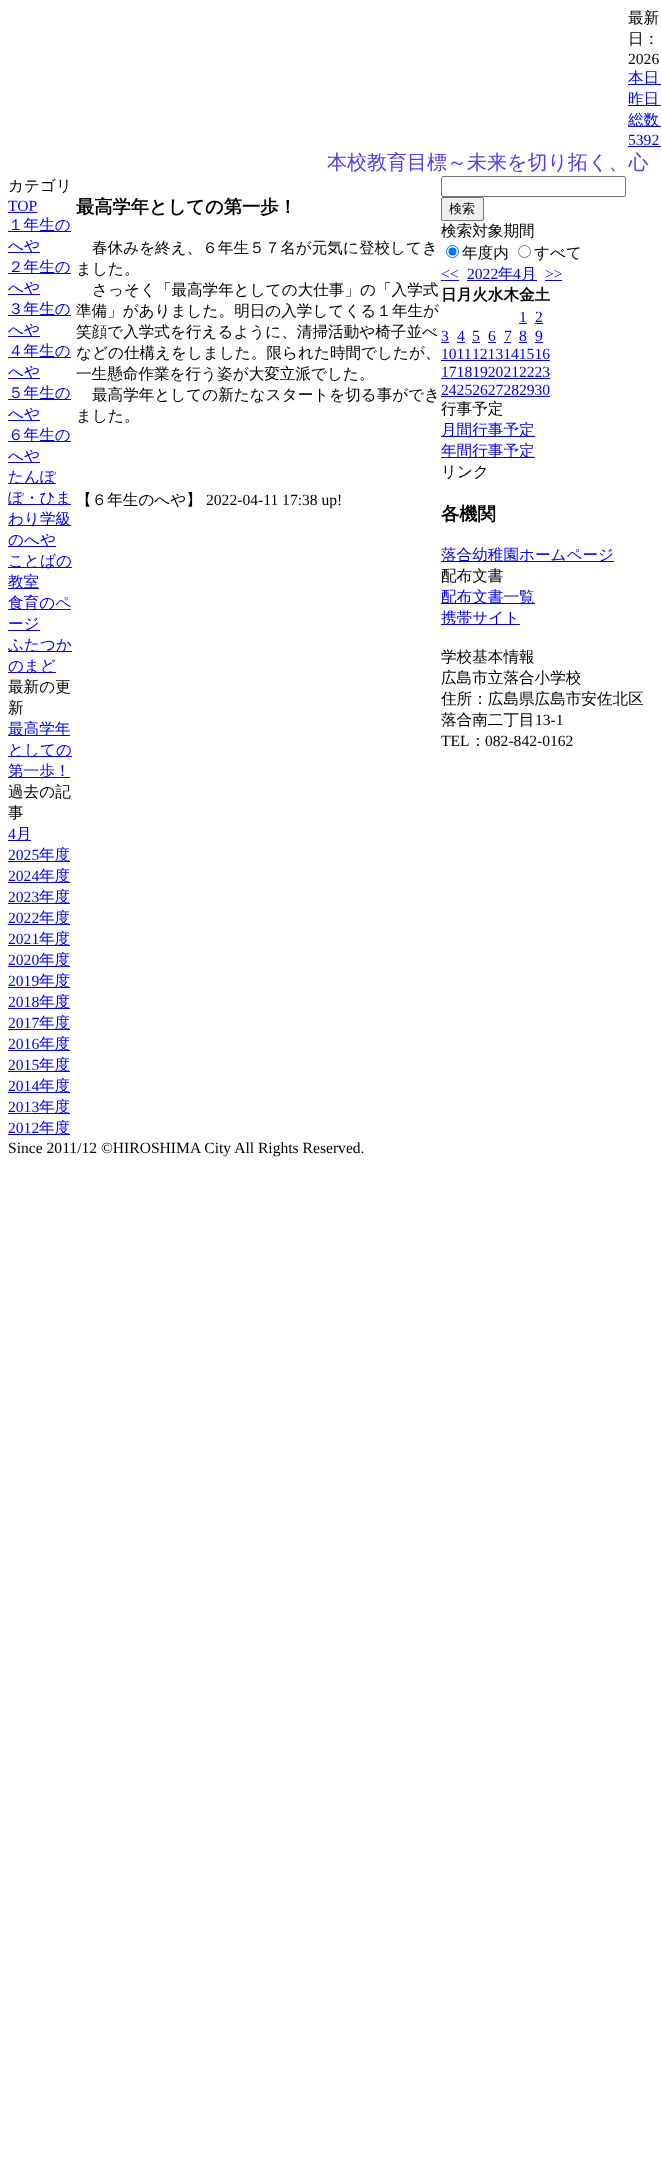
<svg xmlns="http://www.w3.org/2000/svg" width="661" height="2162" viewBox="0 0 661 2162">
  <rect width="100%" height="100%" fill="rgb(255,255,255)"/>
  <g font-family="WenQuanYi Zen Hei" font-size="15.6" font-weight="500" fill="rgb(0,0,0)">
    <text>
      <tspan x="628" y="23">最新</tspan>
      <tspan x="628" y="44">日：</tspan>
    </text>
  </g>
  <text x="628" y="64" font-family="Liberation Serif" font-size="15.6" fill="rgb(0,0,0)">2026</text>
  <rect x="628" y="84" width="33" height="1" fill="rgb(0,0,238)"/>
  <text x="628" y="83" font-family="WenQuanYi Zen Hei" font-size="15.6" font-weight="500" fill="rgb(0,0,238)">本日</text>
  <rect x="628" y="105" width="33" height="1" fill="rgb(0,0,238)"/>
  <text x="628" y="104" font-family="WenQuanYi Zen Hei" font-size="15.6" font-weight="500" fill="rgb(0,0,238)">昨日</text>
  <rect x="628" y="126" width="33" height="1" fill="rgb(0,0,238)"/>
  <text x="628" y="125" font-family="WenQuanYi Zen Hei" font-size="15.6" font-weight="500" fill="rgb(0,0,238)">総数</text>
  <text x="628" y="145" font-family="Liberation Serif" font-size="15.6" fill="rgb(0,0,238)">5392</text>
  <rect x="628" y="146" width="33" height="1" fill="rgb(0,0,238)"/>
  <text x="327" y="169" font-family="WenQuanYi Zen Hei" font-size="20" font-weight="500" fill="rgb(76,64,232)">本校教育目標～未来を切り拓く、心</text>
  <text x="8" y="191" font-family="WenQuanYi Zen Hei" font-size="15.6" font-weight="500" fill="rgb(0,0,0)">カテゴリ</text>
  <text x="8" y="211" font-family="Liberation Serif" font-size="15.6" fill="rgb(0,0,238)">TOP</text>
  <rect x="8" y="212" width="29" height="1" fill="rgb(0,0,238)"/>
  <rect x="8" y="231" width="63" height="1" fill="rgb(0,0,238)"/>
  <text x="8" y="230" font-family="WenQuanYi Zen Hei" font-size="15.6" font-weight="500" fill="rgb(0,0,238)">１年生の</text>
  <rect x="8" y="252" width="32" height="1" fill="rgb(0,0,238)"/>
  <text x="8" y="251" font-family="WenQuanYi Zen Hei" font-size="15.6" font-weight="500" fill="rgb(0,0,238)">へや</text>
  <rect x="8" y="273" width="63" height="1" fill="rgb(0,0,238)"/>
  <text x="8" y="272" font-family="WenQuanYi Zen Hei" font-size="15.6" font-weight="500" fill="rgb(0,0,238)">２年生の</text>
  <rect x="8" y="294" width="32" height="1" fill="rgb(0,0,238)"/>
  <text x="8" y="293" font-family="WenQuanYi Zen Hei" font-size="15.6" font-weight="500" fill="rgb(0,0,238)">へや</text>
  <rect x="8" y="315" width="63" height="1" fill="rgb(0,0,238)"/>
  <text x="8" y="314" font-family="WenQuanYi Zen Hei" font-size="15.6" font-weight="500" fill="rgb(0,0,238)">３年生の</text>
  <rect x="8" y="336" width="32" height="1" fill="rgb(0,0,238)"/>
  <text x="8" y="335" font-family="WenQuanYi Zen Hei" font-size="15.6" font-weight="500" fill="rgb(0,0,238)">へや</text>
  <rect x="8" y="357" width="63" height="1" fill="rgb(0,0,238)"/>
  <text x="8" y="356" font-family="WenQuanYi Zen Hei" font-size="15.6" font-weight="500" fill="rgb(0,0,238)">４年生の</text>
  <rect x="8" y="378" width="32" height="1" fill="rgb(0,0,238)"/>
  <text x="8" y="377" font-family="WenQuanYi Zen Hei" font-size="15.6" font-weight="500" fill="rgb(0,0,238)">へや</text>
  <rect x="8" y="399" width="63" height="1" fill="rgb(0,0,238)"/>
  <text x="8" y="398" font-family="WenQuanYi Zen Hei" font-size="15.6" font-weight="500" fill="rgb(0,0,238)">５年生の</text>
  <rect x="8" y="420" width="32" height="1" fill="rgb(0,0,238)"/>
  <text x="8" y="419" font-family="WenQuanYi Zen Hei" font-size="15.6" font-weight="500" fill="rgb(0,0,238)">へや</text>
  <rect x="8" y="441" width="63" height="1" fill="rgb(0,0,238)"/>
  <text x="8" y="440" font-family="WenQuanYi Zen Hei" font-size="15.6" font-weight="500" fill="rgb(0,0,238)">６年生の</text>
  <rect x="8" y="462" width="32" height="1" fill="rgb(0,0,238)"/>
  <text x="8" y="461" font-family="WenQuanYi Zen Hei" font-size="15.6" font-weight="500" fill="rgb(0,0,238)">へや</text>
  <rect x="8" y="483" width="48" height="1" fill="rgb(0,0,238)"/>
  <text x="8" y="482" font-family="WenQuanYi Zen Hei" font-size="15.6" font-weight="500" fill="rgb(0,0,238)">たんぽ</text>
  <rect x="8" y="504" width="63" height="1" fill="rgb(0,0,238)"/>
  <text x="8" y="503" font-family="WenQuanYi Zen Hei" font-size="15.6" font-weight="500" fill="rgb(0,0,238)">ぽ・ひま</text>
  <rect x="8" y="525" width="63" height="1" fill="rgb(0,0,238)"/>
  <text x="8" y="524" font-family="WenQuanYi Zen Hei" font-size="15.6" font-weight="500" fill="rgb(0,0,238)">わり学級</text>
  <rect x="8" y="546" width="48" height="1" fill="rgb(0,0,238)"/>
  <text x="8" y="545" font-family="WenQuanYi Zen Hei" font-size="15.6" font-weight="500" fill="rgb(0,0,238)">のへや</text>
  <rect x="8" y="567" width="64" height="1" fill="rgb(0,0,238)"/>
  <text x="8" y="566" font-family="WenQuanYi Zen Hei" font-size="15.6" font-weight="500" fill="rgb(0,0,238)">ことばの</text>
  <rect x="8" y="588" width="31" height="1" fill="rgb(0,0,238)"/>
  <text x="8" y="587" font-family="WenQuanYi Zen Hei" font-size="15.6" font-weight="500" fill="rgb(0,0,238)">教室</text>
  <rect x="8" y="609" width="63" height="1" fill="rgb(0,0,238)"/>
  <text x="8" y="608" font-family="WenQuanYi Zen Hei" font-size="15.6" font-weight="500" fill="rgb(0,0,238)">食育のペ</text>
  <rect x="8" y="630" width="32" height="1" fill="rgb(0,0,238)"/>
  <text x="8" y="629" font-family="WenQuanYi Zen Hei" font-size="15.6" font-weight="500" fill="rgb(0,0,238)">ージ</text>
  <rect x="8" y="651" width="64" height="1" fill="rgb(0,0,238)"/>
  <text x="8" y="650" font-family="WenQuanYi Zen Hei" font-size="15.6" font-weight="500" fill="rgb(0,0,238)">ふたつか</text>
  <rect x="8" y="672" width="48" height="1" fill="rgb(0,0,238)"/>
  <text x="8" y="671" font-family="WenQuanYi Zen Hei" font-size="15.6" font-weight="500" fill="rgb(0,0,238)">のまど</text>
  <g font-family="WenQuanYi Zen Hei" font-size="15.6" font-weight="500" fill="rgb(0,0,0)">
    <text>
      <tspan x="8" y="692">最新の更</tspan>
      <tspan x="8" y="713">新</tspan>
    </text>
  </g>
  <rect x="8" y="735" width="62" height="1" fill="rgb(0,0,238)"/>
  <text x="8" y="734" font-family="WenQuanYi Zen Hei" font-size="15.6" font-weight="500" fill="rgb(0,0,238)">最高学年</text>
  <rect x="8" y="756" width="64" height="1" fill="rgb(0,0,238)"/>
  <text x="8" y="755" font-family="WenQuanYi Zen Hei" font-size="15.6" font-weight="500" fill="rgb(0,0,238)">としての</text>
  <rect x="8" y="777" width="62" height="1" fill="rgb(0,0,238)"/>
  <text x="8" y="776" font-family="WenQuanYi Zen Hei" font-size="15.6" font-weight="500" fill="rgb(0,0,238)">第一歩！</text>
  <g font-family="WenQuanYi Zen Hei" font-size="15.6" font-weight="500" fill="rgb(0,0,0)">
    <text>
      <tspan x="8" y="797">過去の記</tspan>
      <tspan x="8" y="818">事</tspan>
    </text>
  </g>
  <text x="8" y="839" font-family="Liberation Serif" font-size="15.6" fill="rgb(0,0,238)">4</text>
  <rect x="8" y="840" width="23" height="1" fill="rgb(0,0,238)"/>
  <text x="16" y="839" font-family="WenQuanYi Zen Hei" font-size="15.6" font-weight="500" fill="rgb(0,0,238)">月</text>
  <text x="8" y="860" font-family="Liberation Serif" font-size="15.6" fill="rgb(0,0,238)">2025</text>
  <rect x="8" y="861" width="62" height="1" fill="rgb(0,0,238)"/>
  <text x="39" y="860" font-family="WenQuanYi Zen Hei" font-size="15.6" font-weight="500" fill="rgb(0,0,238)">年度</text>
  <text x="8" y="881" font-family="Liberation Serif" font-size="15.6" fill="rgb(0,0,238)">2024</text>
  <rect x="8" y="882" width="62" height="1" fill="rgb(0,0,238)"/>
  <text x="39" y="881" font-family="WenQuanYi Zen Hei" font-size="15.6" font-weight="500" fill="rgb(0,0,238)">年度</text>
  <text x="8" y="902" font-family="Liberation Serif" font-size="15.6" fill="rgb(0,0,238)">2023</text>
  <rect x="8" y="903" width="62" height="1" fill="rgb(0,0,238)"/>
  <text x="39" y="902" font-family="WenQuanYi Zen Hei" font-size="15.6" font-weight="500" fill="rgb(0,0,238)">年度</text>
  <text x="8" y="923" font-family="Liberation Serif" font-size="15.6" fill="rgb(0,0,238)">2022</text>
  <rect x="8" y="924" width="62" height="1" fill="rgb(0,0,238)"/>
  <text x="39" y="923" font-family="WenQuanYi Zen Hei" font-size="15.6" font-weight="500" fill="rgb(0,0,238)">年度</text>
  <text x="8" y="944" font-family="Liberation Serif" font-size="15.6" fill="rgb(0,0,238)">2021</text>
  <rect x="8" y="945" width="62" height="1" fill="rgb(0,0,238)"/>
  <text x="39" y="944" font-family="WenQuanYi Zen Hei" font-size="15.6" font-weight="500" fill="rgb(0,0,238)">年度</text>
  <text x="8" y="965" font-family="Liberation Serif" font-size="15.6" fill="rgb(0,0,238)">2020</text>
  <rect x="8" y="966" width="62" height="1" fill="rgb(0,0,238)"/>
  <text x="39" y="965" font-family="WenQuanYi Zen Hei" font-size="15.6" font-weight="500" fill="rgb(0,0,238)">年度</text>
  <text x="8" y="986" font-family="Liberation Serif" font-size="15.6" fill="rgb(0,0,238)">2019</text>
  <rect x="8" y="987" width="62" height="1" fill="rgb(0,0,238)"/>
  <text x="39" y="986" font-family="WenQuanYi Zen Hei" font-size="15.6" font-weight="500" fill="rgb(0,0,238)">年度</text>
  <text x="8" y="1007" font-family="Liberation Serif" font-size="15.6" fill="rgb(0,0,238)">2018</text>
  <rect x="8" y="1008" width="62" height="1" fill="rgb(0,0,238)"/>
  <text x="39" y="1007" font-family="WenQuanYi Zen Hei" font-size="15.6" font-weight="500" fill="rgb(0,0,238)">年度</text>
  <text x="8" y="1028" font-family="Liberation Serif" font-size="15.6" fill="rgb(0,0,238)">2017</text>
  <rect x="8" y="1029" width="62" height="1" fill="rgb(0,0,238)"/>
  <text x="39" y="1028" font-family="WenQuanYi Zen Hei" font-size="15.6" font-weight="500" fill="rgb(0,0,238)">年度</text>
  <text x="8" y="1049" font-family="Liberation Serif" font-size="15.6" fill="rgb(0,0,238)">2016</text>
  <rect x="8" y="1050" width="62" height="1" fill="rgb(0,0,238)"/>
  <text x="39" y="1049" font-family="WenQuanYi Zen Hei" font-size="15.6" font-weight="500" fill="rgb(0,0,238)">年度</text>
  <text x="8" y="1070" font-family="Liberation Serif" font-size="15.6" fill="rgb(0,0,238)">2015</text>
  <rect x="8" y="1071" width="62" height="1" fill="rgb(0,0,238)"/>
  <text x="39" y="1070" font-family="WenQuanYi Zen Hei" font-size="15.6" font-weight="500" fill="rgb(0,0,238)">年度</text>
  <text x="8" y="1091" font-family="Liberation Serif" font-size="15.6" fill="rgb(0,0,238)">2014</text>
  <rect x="8" y="1092" width="62" height="1" fill="rgb(0,0,238)"/>
  <text x="39" y="1091" font-family="WenQuanYi Zen Hei" font-size="15.6" font-weight="500" fill="rgb(0,0,238)">年度</text>
  <text x="8" y="1112" font-family="Liberation Serif" font-size="15.6" fill="rgb(0,0,238)">2013</text>
  <rect x="8" y="1113" width="62" height="1" fill="rgb(0,0,238)"/>
  <text x="39" y="1112" font-family="WenQuanYi Zen Hei" font-size="15.6" font-weight="500" fill="rgb(0,0,238)">年度</text>
  <text x="8" y="1133" font-family="Liberation Serif" font-size="15.6" fill="rgb(0,0,238)">2012</text>
  <rect x="8" y="1134" width="62" height="1" fill="rgb(0,0,238)"/>
  <text x="39" y="1133" font-family="WenQuanYi Zen Hei" font-size="15.6" font-weight="500" fill="rgb(0,0,238)">年度</text>
  <text x="76" y="213" font-family="WenQuanYi Zen Hei" font-size="18.25" font-weight="bold" fill="rgb(0,0,0)">最高学年としての第一歩！</text>
  <g font-family="WenQuanYi Zen Hei" font-size="15.6" font-weight="500" fill="rgb(0,0,0)">
    <text x="92" y="253">春休みを終え、６年生５７名が元気に登校してき</text>
    <text x="76" y="274">ました。</text>
    <text x="92" y="295">さっそく「最高学年としての大仕事」の「入学式</text>
    <text>
      <tspan x="76" y="316">準備」がありました。明日の入学してくる１年生が</tspan>
      <tspan x="76" y="337">笑顔で入学式を行えるように、清掃活動や椅子並べ</tspan>
      <tspan x="76" y="358">などの仕構えをしました。限られた時間でしたが、</tspan>
      <tspan x="76" y="379">一生懸命作業を行う姿が大変立派でした。</tspan>
    </text>
    <text x="92" y="400">最高学年としての新たなスタートを切る事ができ</text>
    <text x="76" y="421">ました。</text>
    <text x="76" y="505">【６年生のへや】</text>
  </g>
  <text x="206" y="505" font-family="Liberation Serif" font-size="15.6" fill="rgb(0,0,0)">2022-04-11 17:38 up!</text>
  <rect x="441.5" y="176.5" width="184" height="20" rx="1.5" fill="none" stroke="rgb(118,118,118)"/>
  <rect x="441.5" y="197.5" width="42" height="23" rx="1.5" fill="rgb(239,239,239)" stroke="rgb(118,118,118)"/>
  <text x="449" y="213" font-family="WenQuanYi Zen Hei" font-size="13" font-weight="500" fill="rgb(0,0,0)">検索</text>
  <text x="441" y="236" font-family="WenQuanYi Zen Hei" font-size="15.6" font-weight="500" fill="rgb(0,0,0)">検索対象期間</text>
  <circle cx="452.5" cy="251.5" r="6" fill="none" stroke="rgb(0,117,255)"/>
  <circle cx="452.5" cy="251.5" r="4" fill="rgb(0,117,255)"/>
  <text x="462" y="258" font-family="WenQuanYi Zen Hei" font-size="15.6" font-weight="500" fill="rgb(0,0,0)">年度内</text>
  <circle cx="524.5" cy="251.5" r="6" fill="none" stroke="rgb(118,118,118)"/>
  <text x="534" y="258" font-family="WenQuanYi Zen Hei" font-size="15.6" font-weight="500" fill="rgb(0,0,0)">すべて</text>
  <text x="441" y="279" font-family="Liberation Serif" font-size="15.6" fill="rgb(0,0,238)">&lt;&lt;</text>
  <rect x="441" y="280" width="18" height="1" fill="rgb(0,0,238)"/>
  <text x="467" y="279" font-family="Liberation Serif" font-size="15.6" fill="rgb(0,0,238)">2022</text>
  <rect x="467" y="280" width="70" height="1" fill="rgb(0,0,238)"/>
  <text x="498" y="279" font-family="WenQuanYi Zen Hei" font-size="15.6" font-weight="500" fill="rgb(0,0,238)">年</text>
  <text x="513" y="279" font-family="Liberation Serif" font-size="15.6" fill="rgb(0,0,238)">4</text>
  <text x="521" y="279" font-family="WenQuanYi Zen Hei" font-size="15.6" font-weight="500" fill="rgb(0,0,238)">月</text>
  <text x="545" y="279" font-family="Liberation Serif" font-size="15.6" fill="rgb(0,0,238)">&gt;&gt;</text>
  <rect x="545" y="280" width="17" height="1" fill="rgb(0,0,238)"/>
  <text x="441" y="300" font-family="WenQuanYi Zen Hei" font-size="15.6" font-weight="bold" fill="rgb(0,0,0)">日月火水木金土</text>
  <text x="519" y="322" font-family="Liberation Serif" font-size="15.6" fill="rgb(0,0,238)">1</text>
  <rect x="519" y="323" width="8" height="1" fill="rgb(0,0,238)"/>
  <text x="535" y="322" font-family="Liberation Serif" font-size="15.6" fill="rgb(0,0,238)">2</text>
  <rect x="535" y="323" width="8" height="1" fill="rgb(0,0,238)"/>
  <text x="441" y="341" font-family="Liberation Serif" font-size="15.6" fill="rgb(0,0,238)">3</text>
  <rect x="441" y="342" width="8" height="1" fill="rgb(0,0,238)"/>
  <text x="457" y="341" font-family="Liberation Serif" font-size="15.6" fill="rgb(0,0,238)">4</text>
  <rect x="457" y="342" width="8" height="1" fill="rgb(0,0,238)"/>
  <text x="472" y="341" font-family="Liberation Serif" font-size="15.6" fill="rgb(0,0,238)">5</text>
  <rect x="472" y="342" width="8" height="1" fill="rgb(0,0,238)"/>
  <text x="488" y="341" font-family="Liberation Serif" font-size="15.6" fill="rgb(0,0,238)">6</text>
  <rect x="488" y="342" width="8" height="1" fill="rgb(0,0,238)"/>
  <text x="504" y="341" font-family="Liberation Serif" font-size="15.6" fill="rgb(0,0,238)">7</text>
  <rect x="504" y="342" width="7" height="1" fill="rgb(0,0,238)"/>
  <text x="519" y="341" font-family="Liberation Serif" font-size="15.6" fill="rgb(0,0,238)">8</text>
  <rect x="519" y="342" width="8" height="1" fill="rgb(0,0,238)"/>
  <text x="535" y="341" font-family="Liberation Serif" font-size="15.6" fill="rgb(0,0,238)">9</text>
  <rect x="535" y="342" width="8" height="1" fill="rgb(0,0,238)"/>
  <text x="441" y="359" font-family="Liberation Serif" font-size="15.6" fill="rgb(0,0,238)">1011</text>
  <rect x="441" y="360" width="109" height="1" fill="rgb(0,0,238)"/>
  <g font-family="Liberation Serif" font-size="15.6" fill="rgb(0,0,238)">
    <text x="472" y="359">1213141516</text>
    <text x="441" y="377">17181920212223</text>
  </g>
  <rect x="441" y="378" width="109" height="1" fill="rgb(0,0,238)"/>
  <text x="441" y="395" font-family="Liberation Serif" font-size="15.6" fill="rgb(0,0,238)">24252627282930</text>
  <rect x="441" y="396" width="109" height="1" fill="rgb(0,0,238)"/>
  <text x="441" y="414" font-family="WenQuanYi Zen Hei" font-size="15.6" font-weight="500" fill="rgb(0,0,0)">行事予定</text>
  <rect x="441" y="436" width="94" height="1" fill="rgb(0,0,238)"/>
  <text x="441" y="435" font-family="WenQuanYi Zen Hei" font-size="15.6" font-weight="500" fill="rgb(0,0,238)">月間行事予定</text>
  <rect x="441" y="457" width="94" height="1" fill="rgb(0,0,238)"/>
  <text x="441" y="456" font-family="WenQuanYi Zen Hei" font-size="15.6" font-weight="500" fill="rgb(0,0,238)">年間行事予定</text>
  <text x="441" y="477" font-family="WenQuanYi Zen Hei" font-size="15.6" font-weight="500" fill="rgb(0,0,0)">リンク</text>
  <text x="441" y="520" font-family="WenQuanYi Zen Hei" font-size="18.25" font-weight="bold" fill="rgb(0,0,0)">各機関</text>
  <rect x="441" y="561" width="173" height="1" fill="rgb(0,0,238)"/>
  <text x="441" y="560" font-family="WenQuanYi Zen Hei" font-size="15.6" font-weight="500" fill="rgb(0,0,238)">落合幼稚園ホームページ</text>
  <text x="441" y="581" font-family="WenQuanYi Zen Hei" font-size="15.6" font-weight="500" fill="rgb(0,0,0)">配布文書</text>
  <rect x="441" y="603" width="94" height="1" fill="rgb(0,0,238)"/>
  <text x="441" y="602" font-family="WenQuanYi Zen Hei" font-size="15.6" font-weight="500" fill="rgb(0,0,238)">配布文書一覧</text>
  <rect x="441" y="624" width="79" height="1" fill="rgb(0,0,238)"/>
  <text x="441" y="623" font-family="WenQuanYi Zen Hei" font-size="15.6" font-weight="500" fill="rgb(0,0,238)">携帯サイト</text>
  <g font-family="WenQuanYi Zen Hei" font-size="15.6" font-weight="500" fill="rgb(0,0,0)">
    <text>
      <tspan x="441" y="662">学校基本情報</tspan>
      <tspan x="441" y="683">広島市立落合小学校</tspan>
      <tspan x="441" y="704">住所：広島県広島市安佐北区</tspan>
      <tspan x="441" y="725">落合南二丁目</tspan>
    </text>
  </g>
  <g font-family="Liberation Serif" font-size="15.6" fill="rgb(0,0,0)">
    <text x="535" y="725">13-1</text>
    <text x="441" y="746">TEL</text>
  </g>
  <text x="470" y="746" font-family="WenQuanYi Zen Hei" font-size="15.6" font-weight="500" fill="rgb(0,0,0)">：</text>
  <g font-family="Liberation Serif" font-size="15.6" fill="rgb(0,0,0)">
    <text x="485" y="746">082-842-0162</text>
    <text x="8" y="1153">Since 2011/12 ©HIROSHIMA City All Rights Reserved.</text>
  </g>
</svg>
